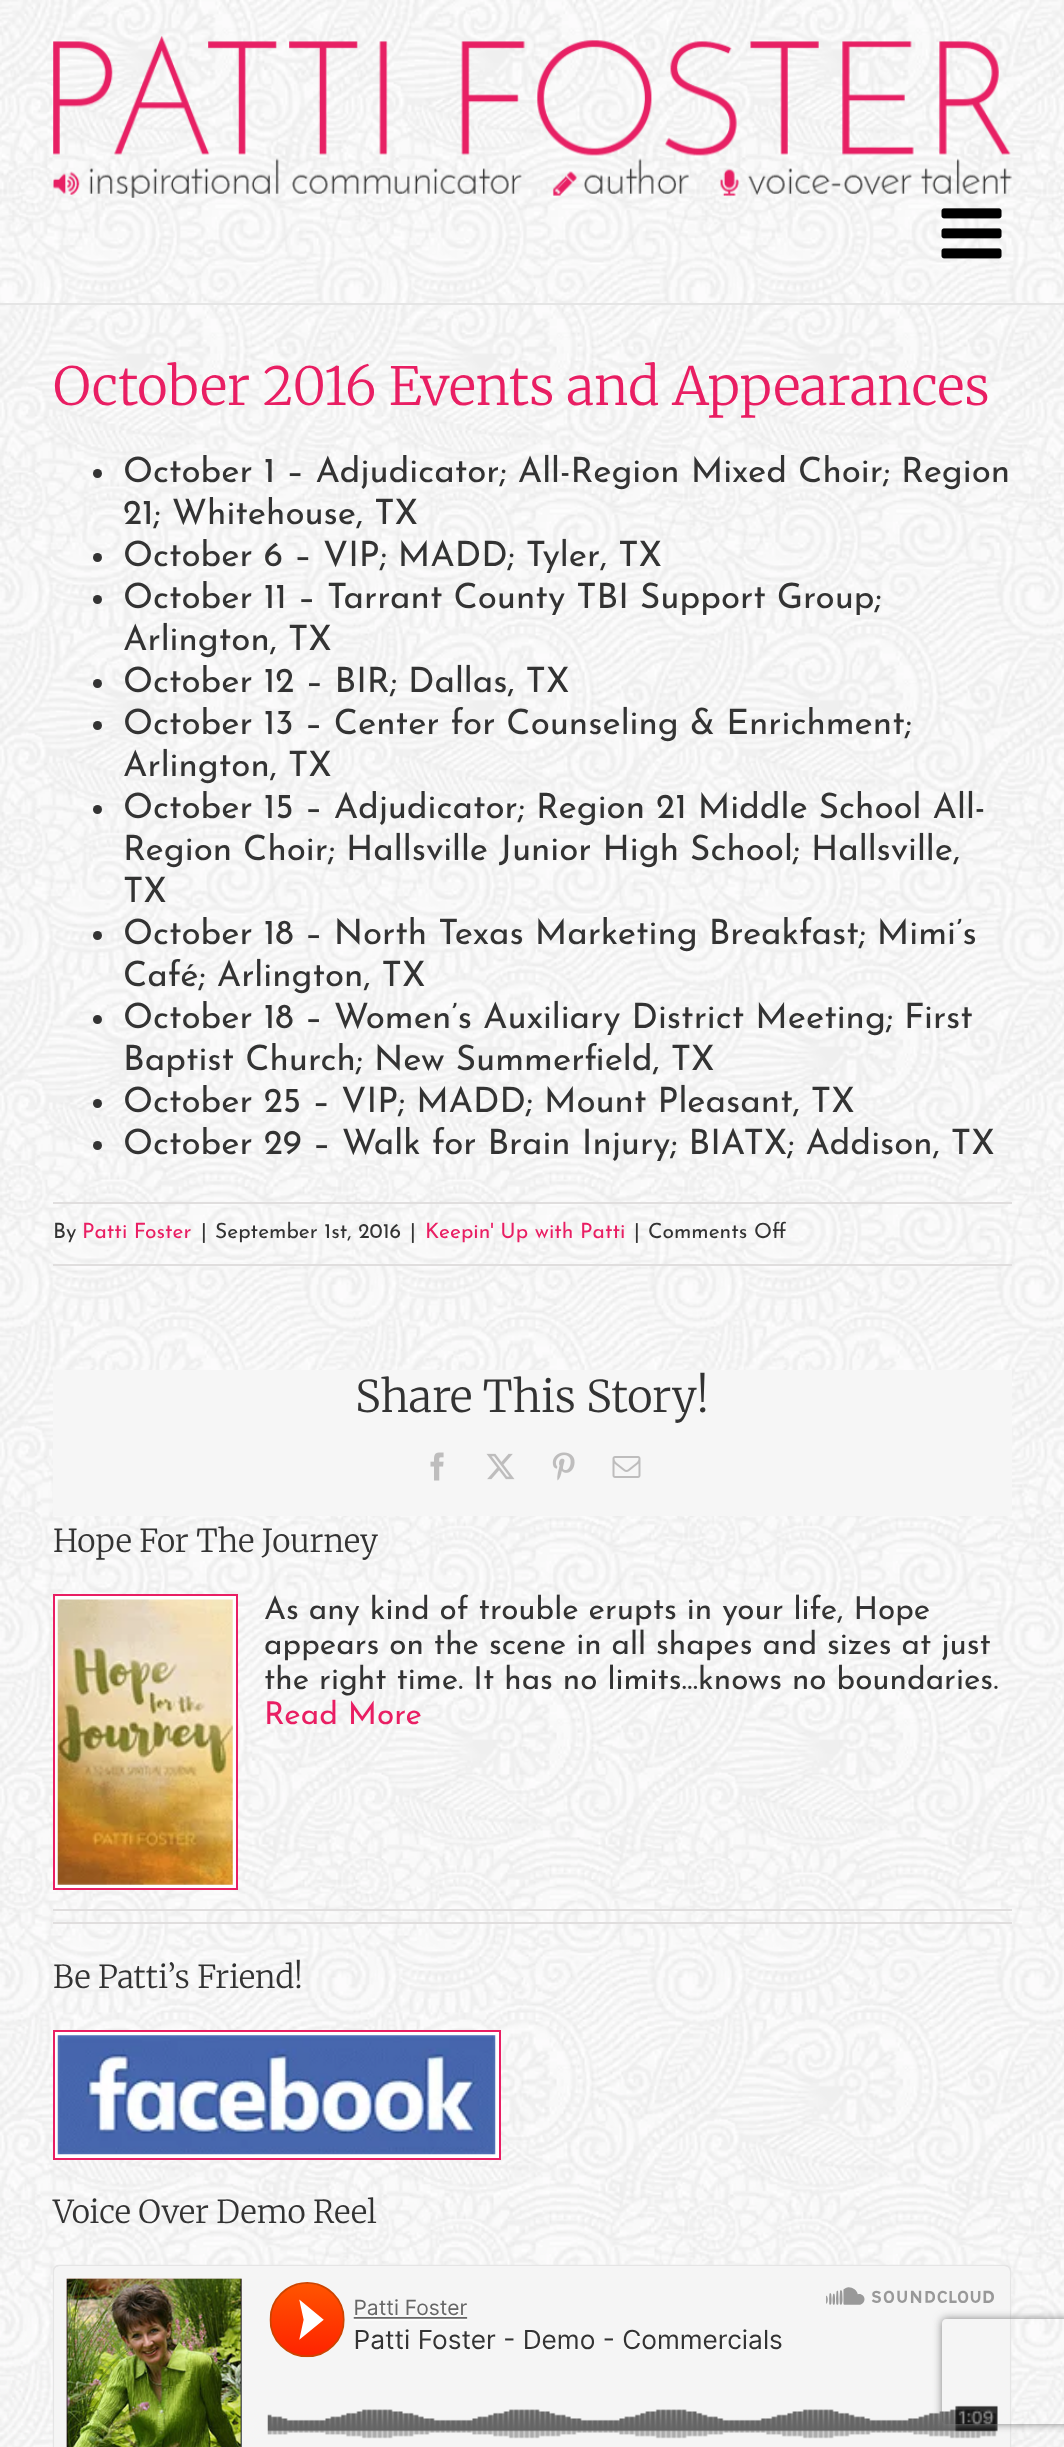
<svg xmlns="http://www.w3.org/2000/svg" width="1064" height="2447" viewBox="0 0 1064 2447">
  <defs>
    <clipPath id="clip1"><path d="M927 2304H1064V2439H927ZM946 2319H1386C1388 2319 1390 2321 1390 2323V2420C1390 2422 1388 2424 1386 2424H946C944 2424 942 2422 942 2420V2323C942 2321 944 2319 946 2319Z" clip-rule="evenodd"/></clipPath>
  </defs>
  <rect width="100%" height="100%" fill="rgb(255,255,255)"/>
  <image x="0" y="0" width="1064" height="303" href="pic1.png"/>
  <rect x="0" y="303" width="1064" height="2" fill="rgb(229,229,229)"/>
  <image x="53" y="36" width="959" height="162" href="pic2.png"/>
  <image x="941" y="208" width="61" height="51" href="pic3.png"/>
  <image x="0" y="305" width="1064" height="2142" href="pic4.png"/>
  <text x="53" y="405" font-family="Merriweather" font-size="52.5" font-weight="300" fill="rgb(233,30,99)">October 2016 Events and Appearances</text>
  <circle cx="97.5" cy="473.5" r="4.5" fill="rgb(51,51,51)"/>
  <g font-family="Josefin Sans" font-size="35" fill="rgb(51,51,51)">
    <text>
      <tspan x="123" y="482">October 1 – Adjudicator; All-Region Mixed Choir; Region</tspan>
      <tspan x="123" y="524">21; Whitehouse, TX</tspan>
    </text>
  </g>
  <circle cx="97.5" cy="557.5" r="4.5" fill="rgb(51,51,51)"/>
  <text x="123" y="566" font-family="Josefin Sans" font-size="35" fill="rgb(51,51,51)">October 6 – VIP; MADD; Tyler, TX</text>
  <circle cx="97.5" cy="599.5" r="4.5" fill="rgb(51,51,51)"/>
  <g font-family="Josefin Sans" font-size="35" fill="rgb(51,51,51)">
    <text>
      <tspan x="123" y="608">October 11 – Tarrant County TBI Support Group;</tspan>
      <tspan x="123" y="650">Arlington, TX</tspan>
    </text>
  </g>
  <circle cx="97.5" cy="683.5" r="4.5" fill="rgb(51,51,51)"/>
  <text x="123" y="692" font-family="Josefin Sans" font-size="35" fill="rgb(51,51,51)">October 12 – BIR; Dallas, TX</text>
  <circle cx="97.5" cy="725.5" r="4.5" fill="rgb(51,51,51)"/>
  <g font-family="Josefin Sans" font-size="35" fill="rgb(51,51,51)">
    <text>
      <tspan x="123" y="734">October 13 – Center for Counseling &amp; Enrichment;</tspan>
      <tspan x="123" y="776">Arlington, TX</tspan>
    </text>
  </g>
  <circle cx="97.5" cy="809.5" r="4.5" fill="rgb(51,51,51)"/>
  <g font-family="Josefin Sans" font-size="35" fill="rgb(51,51,51)">
    <text>
      <tspan x="123" y="818">October 15 – Adjudicator; Region 21 Middle School All-</tspan>
      <tspan x="123" y="860">Region Choir; Hallsville Junior High School; Hallsville,</tspan>
      <tspan x="123" y="902">TX</tspan>
    </text>
  </g>
  <circle cx="97.5" cy="935.5" r="4.5" fill="rgb(51,51,51)"/>
  <g font-family="Josefin Sans" font-size="35" fill="rgb(51,51,51)">
    <text>
      <tspan x="123" y="944">October 18 – North Texas Marketing Breakfast; Mimi’s</tspan>
      <tspan x="123" y="986">Café; Arlington, TX</tspan>
    </text>
  </g>
  <circle cx="97.5" cy="1019.5" r="4.5" fill="rgb(51,51,51)"/>
  <g font-family="Josefin Sans" font-size="35" fill="rgb(51,51,51)">
    <text>
      <tspan x="123" y="1028">October 18 – Women’s Auxiliary District Meeting; First</tspan>
      <tspan x="123" y="1070">Baptist Church; New Summerfield, TX</tspan>
    </text>
  </g>
  <circle cx="97.5" cy="1103.5" r="4.5" fill="rgb(51,51,51)"/>
  <text x="123" y="1112" font-family="Josefin Sans" font-size="35" fill="rgb(51,51,51)">October 25 – VIP; MADD; Mount Pleasant, TX</text>
  <circle cx="97.5" cy="1145.5" r="4.5" fill="rgb(51,51,51)"/>
  <text x="123" y="1154" font-family="Josefin Sans" font-size="35" fill="rgb(51,51,51)">October 29 – Walk for Brain Injury; BIATX; Addison, TX</text>
  <rect x="53" y="1202" width="959" height="2" fill="rgb(224,222,222)"/>
  <rect x="53" y="1264" width="959" height="2" fill="rgb(224,222,222)"/>
  <text x="53" y="1238" font-family="Josefin Sans" font-size="21" fill="rgb(51,51,51)">By</text>
  <text x="82" y="1238" font-family="Josefin Sans" font-size="21" fill="rgb(233,30,99)">Patti Foster</text>
  <g font-family="Josefin Sans" font-size="21" fill="rgb(51,51,51)">
    <text x="201" y="1238">|</text>
    <text x="215" y="1238">September 1st, 2016</text>
    <text x="410" y="1238">|</text>
  </g>
  <text x="425" y="1238" font-family="Josefin Sans" font-size="21" fill="rgb(233,30,99)">Keepin' Up with Patti</text>
  <g font-family="Josefin Sans" font-size="21" fill="rgb(51,51,51)">
    <text x="634" y="1238">|</text>
    <text x="648" y="1238">Comments Off</text>
  </g>
  <rect x="53" y="1370" width="959" height="146" fill="rgb(246,246,246)"/>
  <text x="355" y="1412" font-family="Merriweather" font-size="43.75" font-weight="300" fill="rgb(51,51,51)">Share This Story!</text>
  <image x="430" y="1452" width="14" height="29" href="pic5.png"/>
  <image x="486" y="1453" width="29" height="27" href="pic6.png"/>
  <image x="552" y="1452" width="23" height="29" href="pic7.png"/>
  <image x="612" y="1456" width="29" height="22" href="pic8.png"/>
  <text x="53" y="1552" font-family="Merriweather" font-size="31.5" font-weight="300" fill="rgb(51,51,51)">Hope For The Journey</text>
  <rect x="54" y="1595" width="183" height="294" fill="rgb(255,255,255)" stroke="rgb(233,30,99)" stroke-width="2"/>
  <image x="57" y="1599" width="176" height="286" href="pic9.png"/>
  <g font-family="Josefin Sans" font-size="31.5" fill="rgb(51,51,51)">
    <text>
      <tspan x="264" y="1619">As any kind of trouble erupts in your life, Hope</tspan>
      <tspan x="264" y="1654">appears on the scene in all shapes and sizes at just</tspan>
      <tspan x="264" y="1689">the right time. It has no limits…knows no boundaries.</tspan>
    </text>
  </g>
  <text x="264" y="1724" font-family="Josefin Sans" font-size="31.5" fill="rgb(233,30,99)">Read More</text>
  <rect x="53" y="1909" width="959" height="2" fill="rgb(224,222,222)"/>
  <rect x="53" y="1922" width="959" height="2" fill="rgb(224,222,222)"/>
  <text x="53" y="1988" font-family="Merriweather" font-size="31.5" font-weight="300" fill="rgb(51,51,51)">Be Patti’s Friend!</text>
  <rect x="54" y="2031" width="446" height="128" fill="rgb(255,255,255)" stroke="rgb(233,30,99)" stroke-width="2"/>
  <image x="57" y="2035" width="439" height="120" href="pic10.png"/>
  <text x="53" y="2223" font-family="Merriweather" font-size="31.5" font-weight="300" fill="rgb(51,51,51)">Voice Over Demo Reel</text>
  <image x="52" y="2264" width="960" height="183" href="pic11.png"/>
  <g clip-path="url(#clip1)">
    <rect x="942" y="2319" width="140" height="105" rx="4" fill="rgb(128,128,128)" filter="blur(4.5px)"/>
  </g>
</svg>
